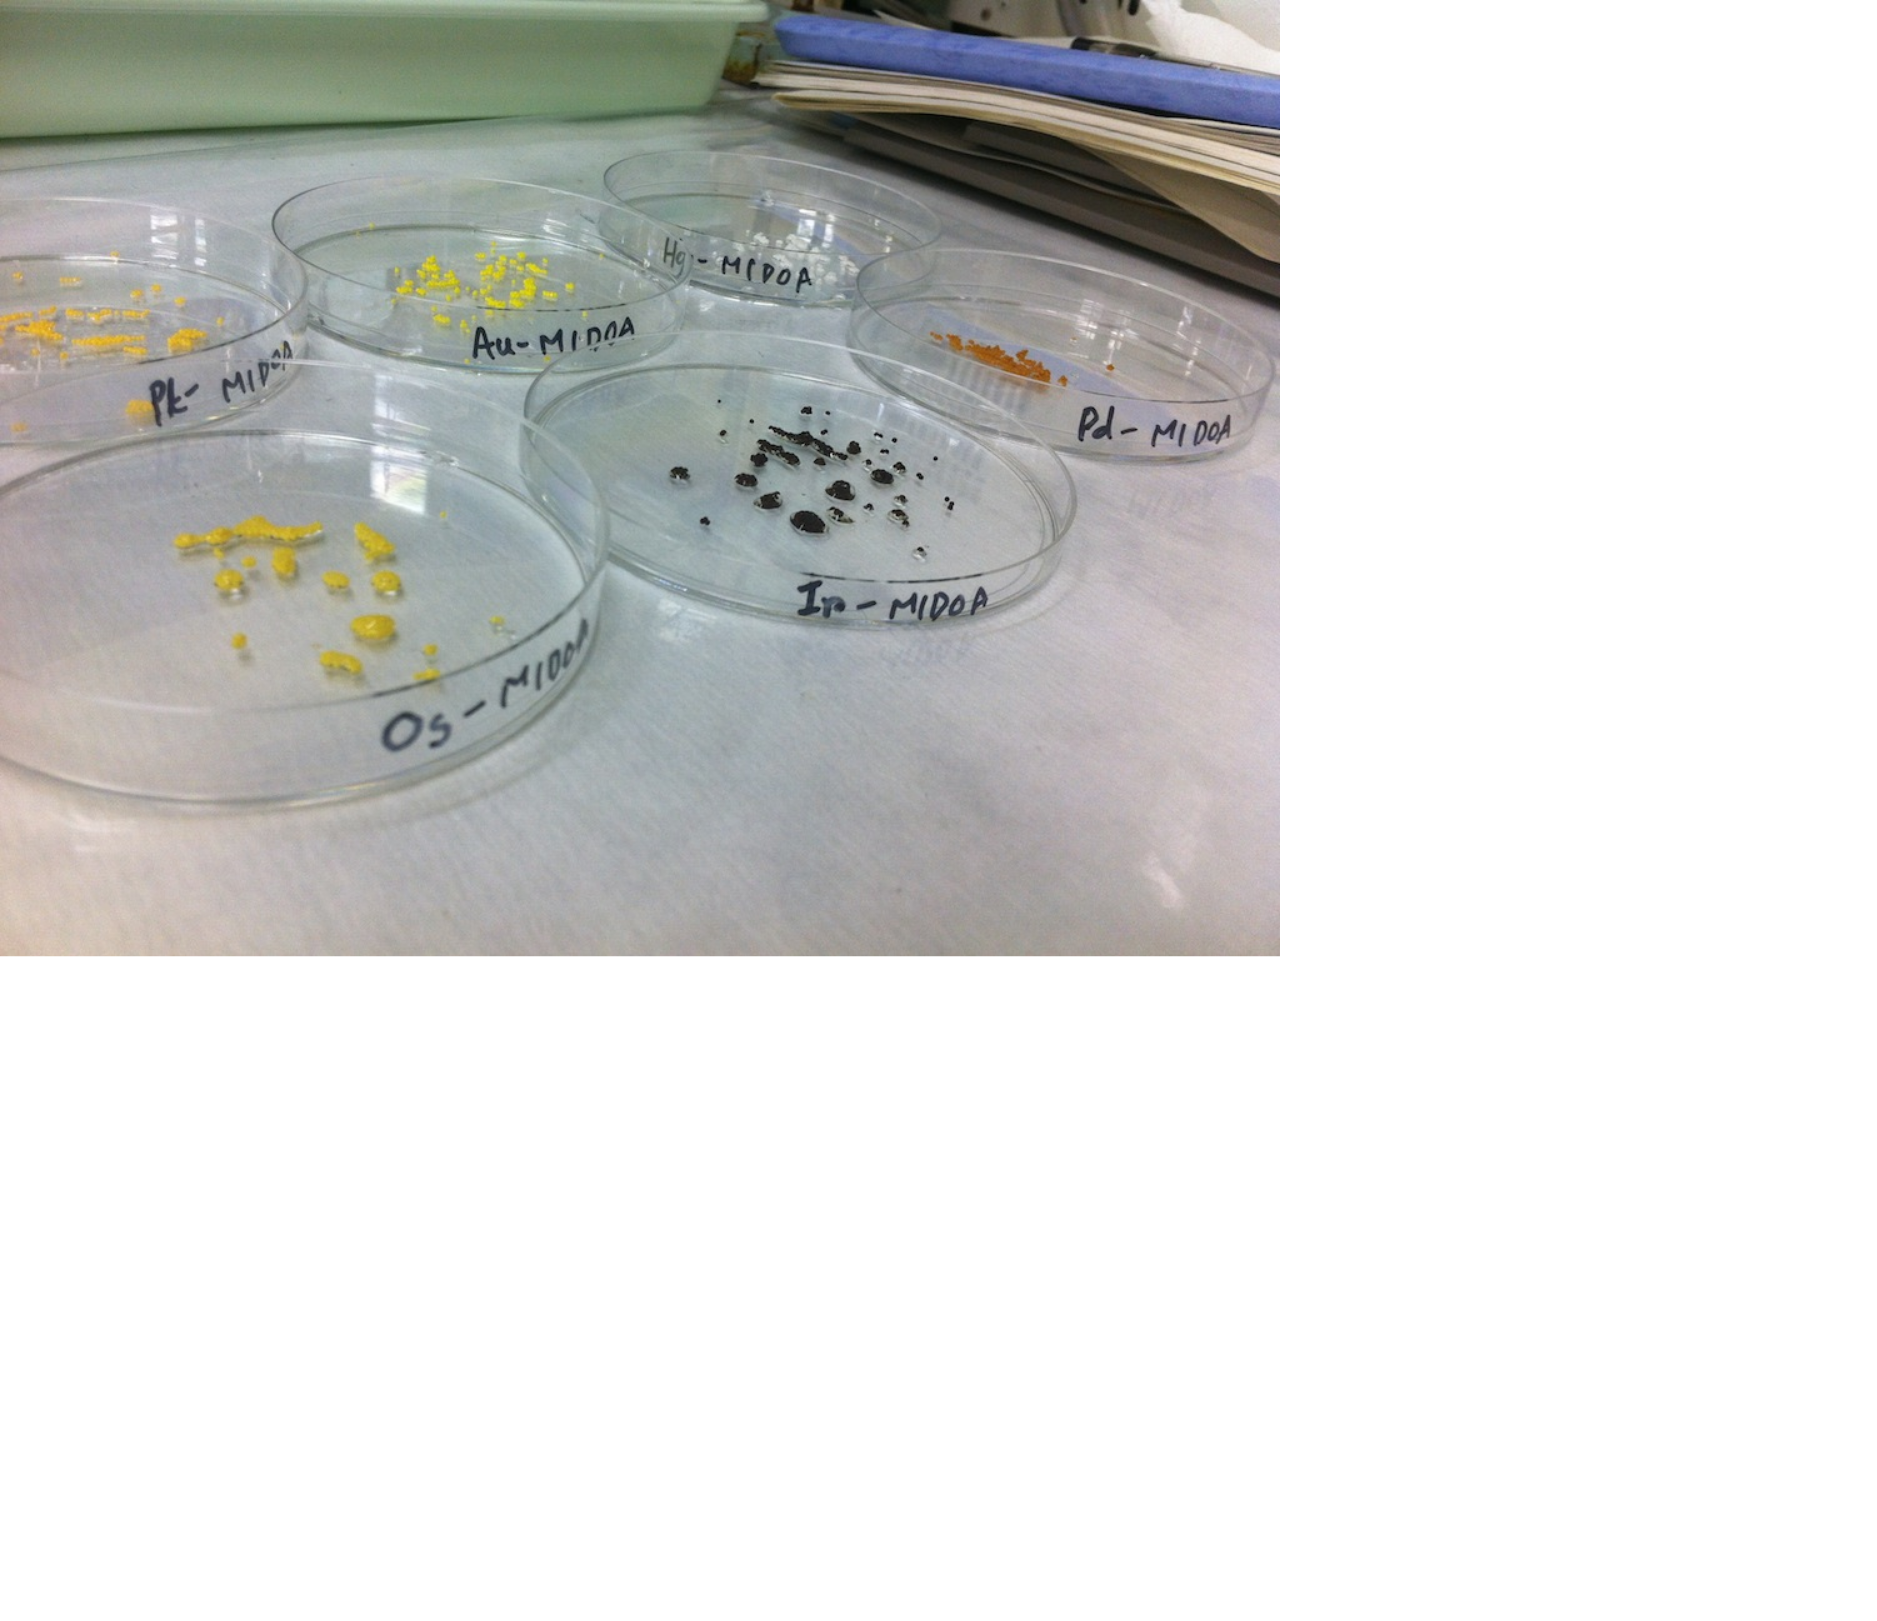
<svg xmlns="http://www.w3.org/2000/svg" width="1877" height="1621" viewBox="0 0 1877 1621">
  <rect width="100%" height="100%" fill="rgb(255,255,255)"/>
  <image x="0" y="0" width="1280" height="957" href="pic1.png"/>
</svg>
